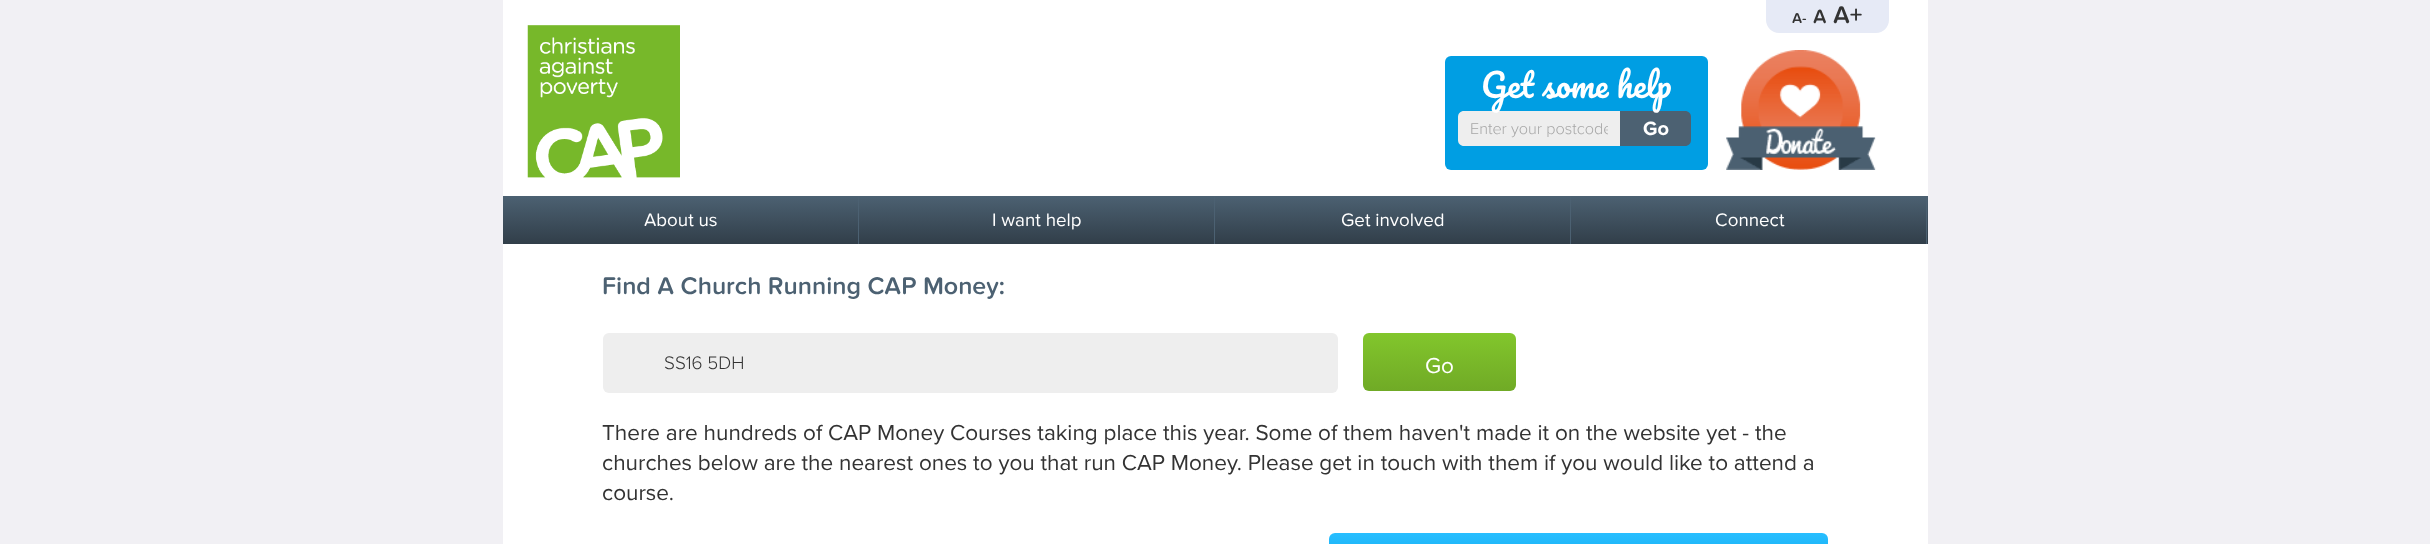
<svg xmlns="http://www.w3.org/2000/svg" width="2430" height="544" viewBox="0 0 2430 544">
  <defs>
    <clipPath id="clip1"><rect x="1470" y="119" width="138" height="20"/></clipPath>
    <linearGradient id="g1" gradientUnits="userSpaceOnUse" x1="681" y1="196" x2="681" y2="244"><stop offset="0" stop-color="rgb(76,97,114)"/><stop offset="1" stop-color="rgb(49,62,73)"/></linearGradient>
    <linearGradient id="g2" gradientUnits="userSpaceOnUse" x1="1037" y1="196" x2="1037" y2="244"><stop offset="0" stop-color="rgb(76,97,114)"/><stop offset="1" stop-color="rgb(49,62,73)"/></linearGradient>
    <linearGradient id="g3" gradientUnits="userSpaceOnUse" x1="1393" y1="196" x2="1393" y2="244"><stop offset="0" stop-color="rgb(76,97,114)"/><stop offset="1" stop-color="rgb(49,62,73)"/></linearGradient>
    <linearGradient id="g4" gradientUnits="userSpaceOnUse" x1="1749" y1="196" x2="1749" y2="244"><stop offset="0" stop-color="rgb(76,97,114)"/><stop offset="1" stop-color="rgb(49,62,73)"/></linearGradient>
    <linearGradient id="g5" gradientUnits="userSpaceOnUse" x1="1439" y1="333" x2="1439" y2="391"><stop offset="0" stop-color="rgb(130,198,44)"/><stop offset="1" stop-color="rgb(112,170,38)"/></linearGradient>
    <linearGradient id="g6" gradientUnits="userSpaceOnUse" x1="1578" y1="533" x2="1578" y2="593"><stop offset="0" stop-color="rgb(40,190,255)"/><stop offset="1" stop-color="rgb(0,158,227)"/></linearGradient>
  </defs>
  <rect width="100%" height="100%" fill="rgb(241,240,244)"/>
  <rect x="503" y="0" width="1425" height="196" fill="rgb(255,255,255)"/>
  <image x="527" y="25" width="153" height="153" href="pic1.png"/>
  <path d="M1766 0H1889V20C1889 27 1883 33 1876 33H1779C1772 33 1766 27 1766 20Z" fill="rgb(230,234,246)"/>
  <text x="1792" y="23" font-family="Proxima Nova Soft" font-size="15" font-weight="600" fill="rgb(51,51,51)">A-</text>
  <text x="1813" y="23" font-family="Proxima Nova Soft" font-size="20" font-weight="600" fill="rgb(51,51,51)">A</text>
  <text x="1833" y="23" font-family="Proxima Nova Soft" font-size="25" font-weight="600" fill="rgb(51,51,51)">A+</text>
  <rect x="1445" y="56" width="263" height="114" rx="6" fill="rgb(0,158,227)"/>
  <path d="M1464 111H1620V146H1464C1460.5 146 1458 143.5 1458 140V117C1458 113.5 1460.5 111 1464 111Z" fill="rgb(238,238,238)"/>
  <path d="M1620 111H1685C1688.5 111 1691 113.5 1691 117V140C1691 143.5 1688.5 146 1685 146H1620Z" fill="rgb(76,97,114)"/>
  <text x="1481" y="98" font-family="Pacifico" font-size="32.5" fill="rgb(255,255,255)">Get some help</text>
  <g clip-path="url(#clip1)">
    <text x="1470" y="134" font-family="Proxima Nova" font-size="16.25" font-weight="300" fill="rgb(167,167,167)">Enter your postcode</text>
  </g>
  <text x="1643" y="135" font-family="Proxima Nova" font-size="20" font-weight="bold" fill="rgb(255,255,255)">Go</text>
  <image x="1726" y="50" width="150" height="120" href="pic2.png"/>
  <rect x="503" y="196" width="355" height="48" fill="url(#g1)"/>
  <text x="644" y="226" font-family="Proxima Nova Soft" font-size="18.75" fill="rgb(255,255,255)">About us</text>
  <rect x="858" y="196" width="1" height="48" fill="rgb(76,97,114)"/>
  <rect x="859" y="196" width="355" height="48" fill="url(#g2)"/>
  <text x="992" y="226" font-family="Proxima Nova Soft" font-size="18.75" fill="rgb(255,255,255)">I want help</text>
  <rect x="1214" y="196" width="1" height="48" fill="rgb(76,97,114)"/>
  <rect x="1215" y="196" width="355" height="48" fill="url(#g3)"/>
  <text x="1341" y="226" font-family="Proxima Nova Soft" font-size="18.75" fill="rgb(255,255,255)">Get involved</text>
  <rect x="1570" y="196" width="1" height="48" fill="rgb(76,97,114)"/>
  <rect x="1571" y="196" width="357" height="48" fill="url(#g4)"/>
  <text x="1715" y="226" font-family="Proxima Nova Soft" font-size="18.75" fill="rgb(255,255,255)">Connect</text>
  <rect x="1926" y="196" width="1" height="48" fill="rgb(76,97,114)"/>
  <rect x="503" y="244" width="1425" height="300" fill="rgb(255,255,255)"/>
  <text x="602" y="294" font-family="Proxima Nova Soft" font-size="25" font-weight="600" fill="rgb(76,97,114)">Find A Church Running CAP Money:</text>
  <rect x="603" y="333" width="735" height="60" rx="6" fill="rgb(238,238,238)"/>
  <text x="664" y="369" font-family="Proxima Nova" font-size="18.75" font-weight="300" fill="rgb(51,51,51)">SS16 5DH</text>
  <rect x="1363" y="333" width="153" height="58" rx="6" fill="url(#g5)"/>
  <text x="1425" y="373" font-family="Proxima Nova" font-size="22.5" fill="rgb(255,255,255)">Go</text>
  <g font-family="Proxima Nova" font-size="22.5" fill="rgb(51,51,51)">
    <text>
      <tspan x="602" y="440">There are hundreds of CAP Money Courses taking place this year. Some of them haven't made it on the website yet - the</tspan>
      <tspan x="602" y="470">churches below are the nearest ones to you that run CAP Money. Please get in touch with them if you would like to attend a</tspan>
      <tspan x="602" y="500">course.</tspan>
    </text>
  </g>
  <rect x="1329" y="533" width="499" height="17" rx="6" fill="url(#g6)"/>
</svg>
